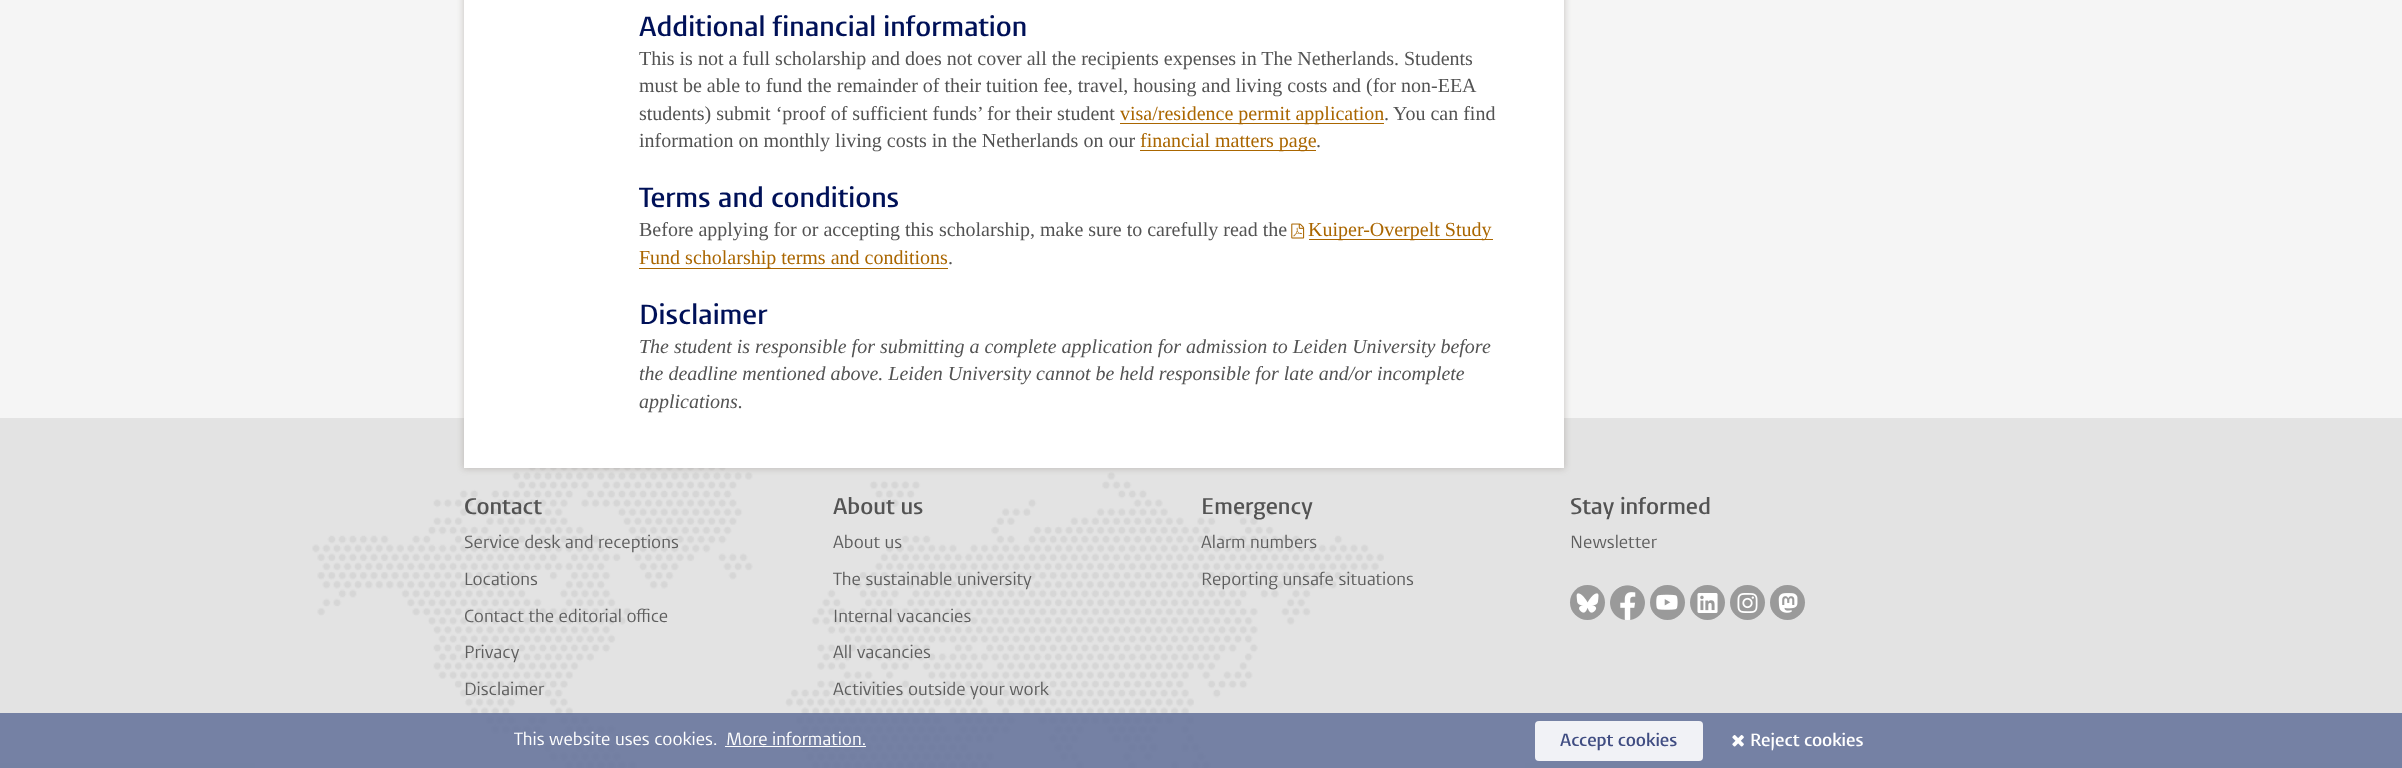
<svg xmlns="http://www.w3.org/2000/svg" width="2402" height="768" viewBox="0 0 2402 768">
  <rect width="100%" height="100%" fill="rgb(245,245,245)"/>
  <rect x="0" y="418" width="2402" height="350" fill="rgb(227,227,227)"/>
  <image x="312" y="468" width="1072" height="300" href="pic2.png"/>
  <rect x="463" y="-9" width="1102" height="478" fill="rgba(120,110,100,0.3)" filter="blur(3px)"/>
  <rect x="464" y="0" width="1100" height="468" fill="rgb(255,255,255)"/>
  <text x="639" y="36" font-family="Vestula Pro" font-size="27.5" font-weight="600" fill="rgb(0,17,88)">Additional financial information</text>
  <g font-family="Liberation Serif" font-size="20" fill="rgb(83,83,83)">
    <text>
      <tspan x="639" y="65">This is not a full scholarship and does not cover all the recipients expenses in The Netherlands. Students</tspan>
      <tspan x="639" y="92">must be able to fund the remainder of their tuition fee, travel, housing and living costs and (for non-EEA</tspan>
      <tspan x="639" y="120">students) submit ‘proof of sufficient funds’ for their student</tspan>
    </text>
  </g>
  <rect x="1120" y="123" width="264" height="1" fill="rgb(170,102,0)"/>
  <text x="1120" y="120" font-family="Liberation Serif" font-size="20" fill="rgb(170,102,0)">visa/residence permit application</text>
  <g font-family="Liberation Serif" font-size="20" fill="rgb(83,83,83)">
    <text x="1384" y="120">.</text>
    <text x="1393" y="120">You can find</text>
    <text x="639" y="147">information on monthly living costs in the Netherlands on our</text>
  </g>
  <rect x="1140" y="150" width="176" height="1" fill="rgb(170,102,0)"/>
  <text x="1140" y="147" font-family="Liberation Serif" font-size="20" fill="rgb(170,102,0)">financial matters page</text>
  <text x="1316" y="147" font-family="Liberation Serif" font-size="20" fill="rgb(83,83,83)">.</text>
  <text x="639" y="207" font-family="Vestula Pro" font-size="27.5" font-weight="600" fill="rgb(0,17,88)">Terms and conditions</text>
  <text x="639" y="236" font-family="Liberation Serif" font-size="20" fill="rgb(83,83,83)">Before applying for or accepting this scholarship, make sure to carefully read the</text>
  <image x="1291" y="223" width="14" height="16" href="pic1.png"/>
  <rect x="1309" y="239" width="184" height="1" fill="rgb(170,102,0)"/>
  <text x="1308" y="236" font-family="Liberation Serif" font-size="20" fill="rgb(170,102,0)">Kuiper-Overpelt Study</text>
  <rect x="639" y="268" width="309" height="1" fill="rgb(170,102,0)"/>
  <text x="639" y="264" font-family="Liberation Serif" font-size="20" fill="rgb(170,102,0)">Fund scholarship terms and conditions</text>
  <text x="948" y="264" font-family="Liberation Serif" font-size="20" fill="rgb(83,83,83)">.</text>
  <text x="639" y="324" font-family="Vestula Pro" font-size="27.5" font-weight="600" fill="rgb(0,17,88)">Disclaimer</text>
  <g font-family="Liberation Serif" font-size="20" font-style="italic" fill="rgb(83,83,83)">
    <text>
      <tspan x="639" y="353">The student is responsible for submitting a complete application for admission to Leiden University before</tspan>
      <tspan x="639" y="380">the deadline mentioned above. Leiden University cannot be held responsible for late and/or incomplete</tspan>
      <tspan x="639" y="408">applications.</tspan>
    </text>
  </g>
  <text x="464" y="514" font-family="Vestula Pro" font-size="22.5" font-weight="600" fill="rgb(83,83,83)">Contact</text>
  <g font-family="Vestula Pro" font-size="17.5" fill="rgb(94,94,94)">
    <text x="464" y="548">Service desk and receptions</text>
    <text x="464" y="585">Locations</text>
    <text x="464" y="622">Contact the editorial office</text>
    <text x="464" y="658">Privacy</text>
    <text x="464" y="695">Disclaimer</text>
  </g>
  <text x="833" y="514" font-family="Vestula Pro" font-size="22.5" font-weight="600" fill="rgb(83,83,83)">About us</text>
  <g font-family="Vestula Pro" font-size="17.5" fill="rgb(94,94,94)">
    <text x="833" y="548">About us</text>
    <text x="833" y="585">The sustainable university</text>
    <text x="833" y="622">Internal vacancies</text>
    <text x="833" y="658">All vacancies</text>
    <text x="833" y="695">Activities outside your work</text>
  </g>
  <text x="1201" y="514" font-family="Vestula Pro" font-size="22.5" font-weight="600" fill="rgb(83,83,83)">Emergency</text>
  <g font-family="Vestula Pro" font-size="17.5" fill="rgb(94,94,94)">
    <text x="1201" y="548">Alarm numbers</text>
    <text x="1201" y="585">Reporting unsafe situations</text>
  </g>
  <text x="1570" y="514" font-family="Vestula Pro" font-size="22.5" font-weight="600" fill="rgb(83,83,83)">Stay informed</text>
  <text x="1570" y="548" font-family="Vestula Pro" font-size="17.5" fill="rgb(94,94,94)">Newsletter</text>
  <circle cx="1587.5" cy="602.5" r="17.5" fill="rgb(154,154,154)"/>
  <image x="1576" y="593" width="23" height="20" href="pic3.png"/>
  <circle cx="1627.5" cy="602.5" r="17.5" fill="rgb(255,255,255)"/>
  <image x="1610" y="585" width="35" height="35" href="pic4.png"/>
  <circle cx="1667.5" cy="602.5" r="17.5" fill="rgb(154,154,154)"/>
  <image x="1656" y="594" width="22" height="16" href="pic5.png"/>
  <circle cx="1707.5" cy="602.5" r="17.5" fill="rgb(154,154,154)"/>
  <image x="1697" y="593" width="21" height="20" href="pic6.png"/>
  <circle cx="1747.5" cy="602.5" r="17.5" fill="rgb(154,154,154)"/>
  <image x="1737" y="593" width="21" height="20" href="pic7.png"/>
  <circle cx="1787.5" cy="602.5" r="17.5" fill="rgb(154,154,154)"/>
  <image x="1778" y="593" width="20" height="20" href="pic8.png"/>
  <rect x="0" y="713" width="2402" height="55" fill="rgba(104,118,156,0.9)"/>
  <g font-family="Vestula Pro" font-size="17.5" fill="rgb(255,255,255)">
    <text x="514" y="745">This website uses cookies.</text>
    <text x="726" y="745">More information.</text>
  </g>
  <rect x="725" y="746" width="141" height="1" fill="rgb(255,255,255)"/>
  <rect x="1535" y="721" width="168" height="40" rx="4" fill="rgb(241,242,246)"/>
  <text x="1560" y="746" font-family="Vestula Pro" font-size="17.5" font-weight="600" fill="rgb(64,77,130)">Accept cookies</text>
  <image x="1732" y="735" width="12" height="12" href="pic9.png"/>
  <text x="1750" y="746" font-family="Vestula Pro" font-size="17.5" font-weight="600" fill="rgb(255,255,255)">Reject cookies</text>
</svg>
